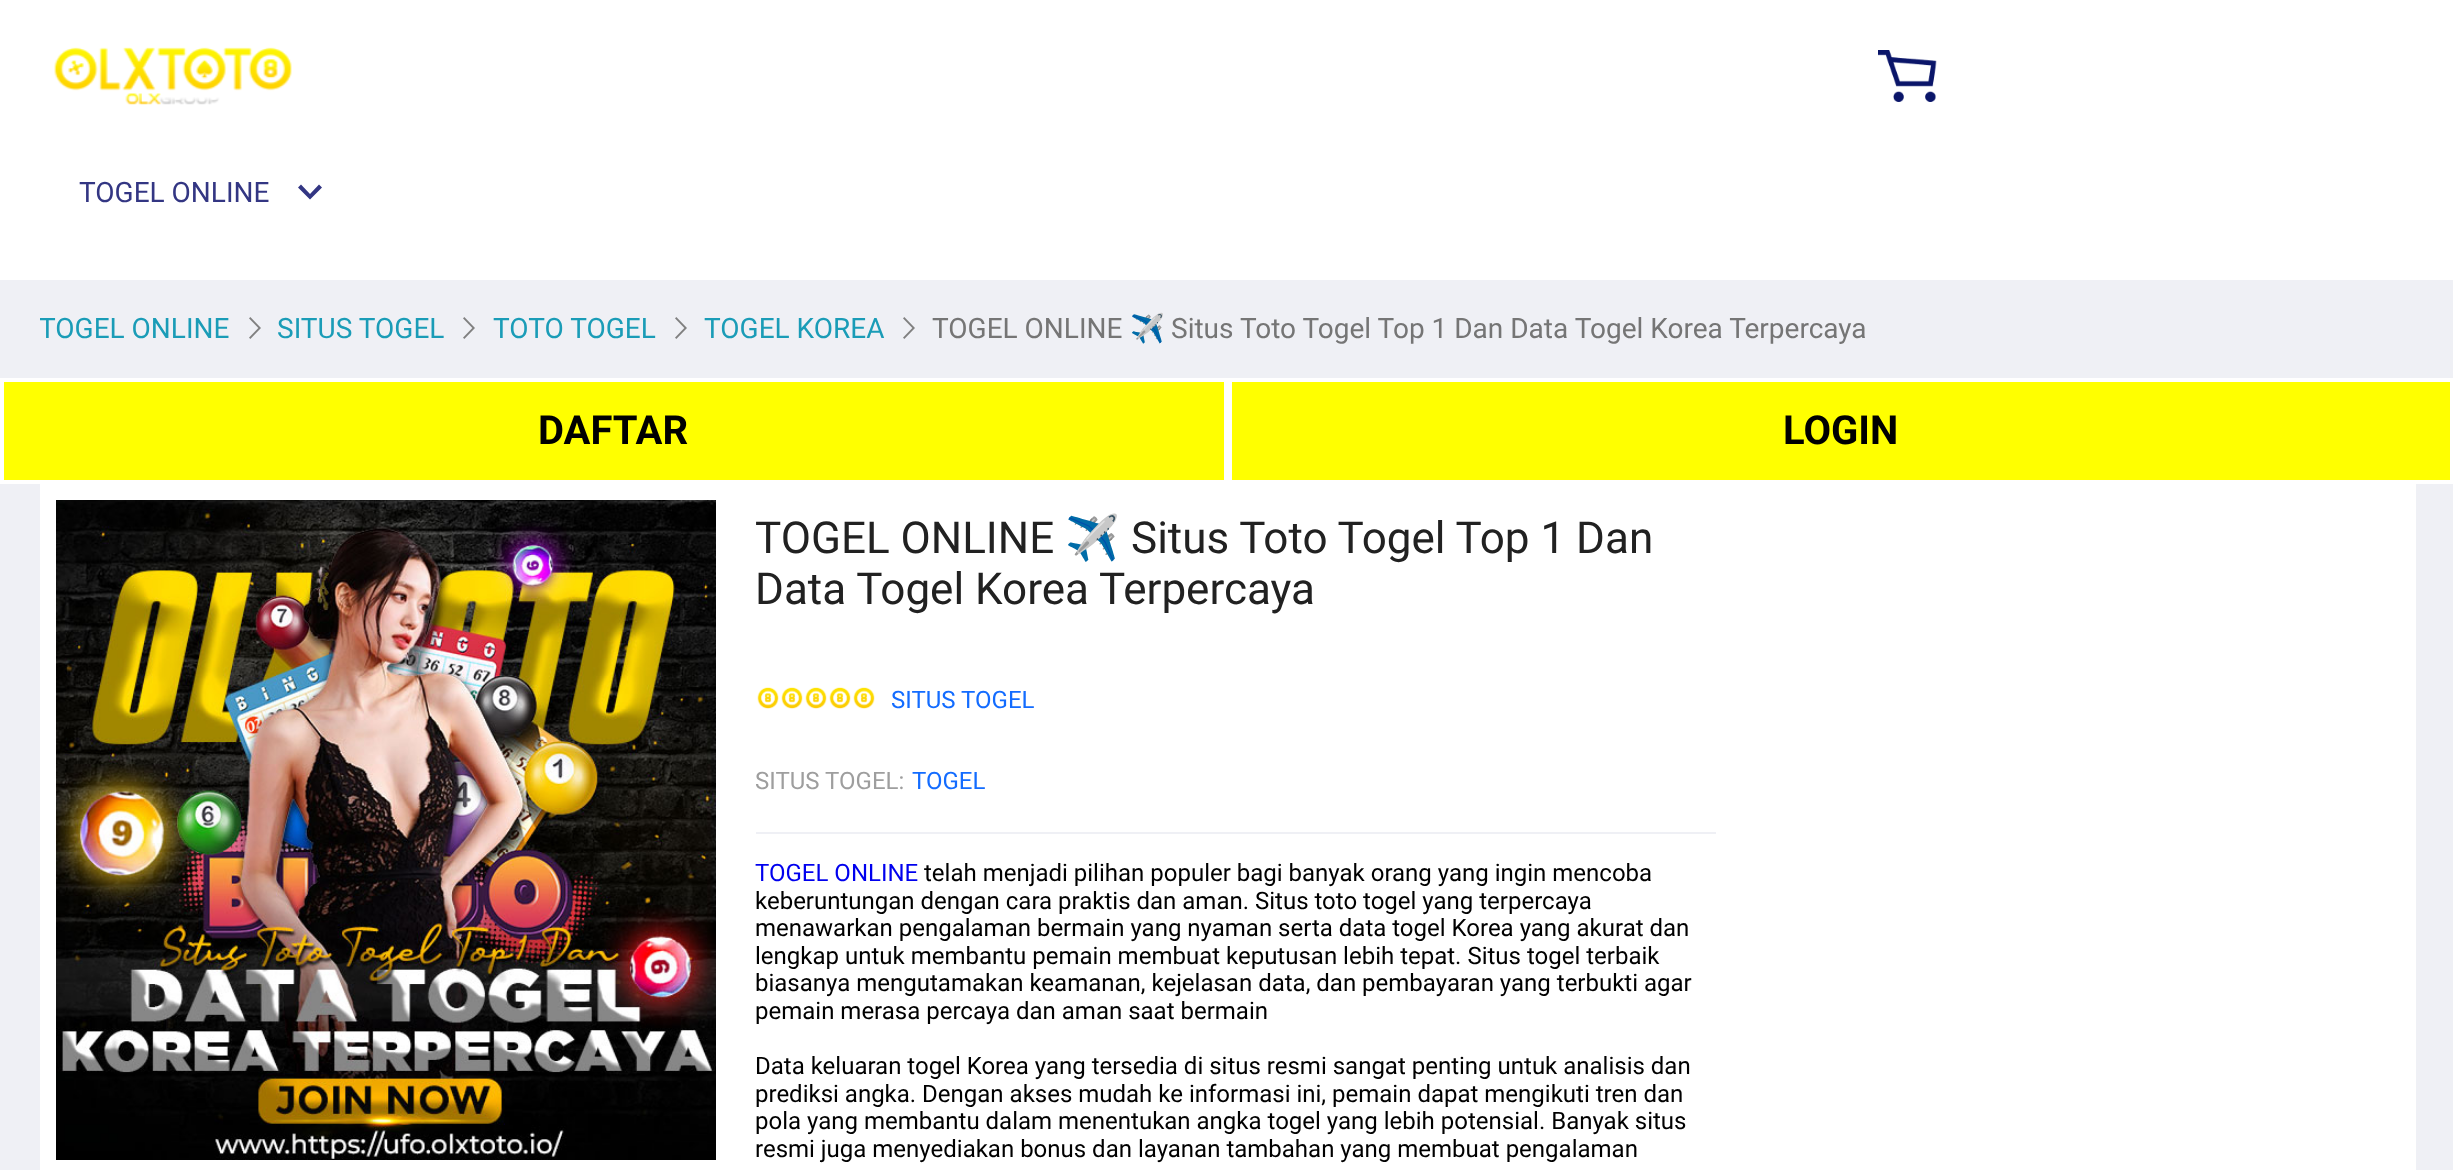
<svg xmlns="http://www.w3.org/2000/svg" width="2453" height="1170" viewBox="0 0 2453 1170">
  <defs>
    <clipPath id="clip1"><rect x="40" y="312" width="198" height="32"/></clipPath>
  </defs>
  <rect width="100%" height="100%" fill="rgb(239,240,245)"/>
  <rect x="0" y="0" width="2453" height="280" fill="rgb(255,255,255)"/>
  <image x="54" y="47" width="238" height="58" href="pic1.png"/>
  <image x="1878" y="50" width="59" height="52" href="pic2.png"/>
  <text x="79" y="202" font-family="Roboto" font-size="28" fill="rgb(51,54,131)">TOGEL ONLINE</text>
  <path d="M319 184.5L322 187.5L310 199.5L298 187.5L301 184.5L310 194Z" fill="rgb(51,54,131)"/>
  <g clip-path="url(#clip1)">
    <text x="39" y="338" font-family="Roboto" font-size="28" fill="rgb(26,156,183)">TOGEL ONLINE</text>
  </g>
  <image x="249" y="317" width="12" height="22" href="pic3.png"/>
  <text x="277" y="338" font-family="Roboto" font-size="28" fill="rgb(26,156,183)">SITUS TOGEL</text>
  <image x="463" y="317" width="12" height="22" href="pic3.png"/>
  <text x="493" y="338" font-family="Roboto" font-size="28" fill="rgb(26,156,183)">TOTO TOGEL</text>
  <image x="675" y="317" width="12" height="22" href="pic3.png"/>
  <text x="704" y="338" font-family="Roboto" font-size="28" fill="rgb(26,156,183)">TOGEL KOREA</text>
  <image x="903" y="317" width="12" height="22" href="pic3.png"/>
  <text x="932" y="338" font-family="Roboto" font-size="28" fill="rgb(117,117,117)">TOGEL ONLINE</text>
  <text x="1130" y="338" font-family="'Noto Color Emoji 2'" font-size="28" fill="rgb(117,117,117)">✈️</text>
  <text x="1171" y="338" font-family="Roboto" font-size="28" fill="rgb(117,117,117)">Situs Toto Togel Top 1 Dan Data Togel Korea Terpercaya</text>
  <rect x="2" y="380" width="1224" height="102" fill="rgb(255,255,0)" stroke="rgb(255,255,255)" stroke-width="4"/>
  <text x="538" y="444" font-family="Roboto" font-size="40" font-weight="bold" fill="rgb(0,0,0)">DAFTAR</text>
  <rect x="1230" y="380" width="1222" height="102" fill="rgb(255,255,0)" stroke="rgb(255,255,255)" stroke-width="4"/>
  <text x="1783" y="444" font-family="Roboto" font-size="40" font-weight="bold" fill="rgb(0,0,0)">LOGIN</text>
  <rect x="40" y="484" width="2376" height="686" fill="rgb(255,255,255)"/>
  <image x="56" y="500" width="660" height="660" href="pic4.png"/>
  <text x="755" y="553" font-family="Roboto" font-size="44" fill="rgb(33,33,33)">TOGEL ONLINE</text>
  <text x="1065" y="553" font-family="Noto Color Emoji" font-size="44" fill="rgb(33,33,33)">✈️</text>
  <g font-family="Roboto" font-size="44" fill="rgb(33,33,33)">
    <text x="1131" y="553">Situs Toto Togel Top 1 Dan</text>
    <text x="755" y="604">Data Togel Korea Terpercaya</text>
  </g>
  <image x="757" y="687" width="22" height="22" href="pic5.png"/>
  <image x="781" y="687" width="22" height="22" href="pic5.png"/>
  <image x="805" y="687" width="22" height="22" href="pic5.png"/>
  <image x="829" y="687" width="22" height="22" href="pic5.png"/>
  <image x="853" y="687" width="22" height="22" href="pic5.png"/>
  <text x="891" y="708" font-family="Roboto" font-size="24" fill="rgb(19,108,255)">SITUS TOGEL</text>
  <rect x="756" y="832" width="960" height="2" fill="rgb(239,240,245)"/>
  <text x="755" y="789" font-family="Roboto" font-size="24" fill="rgb(158,158,158)">SITUS TOGEL:</text>
  <text x="912" y="789" font-family="Roboto" font-size="24" fill="rgb(19,108,255)">TOGEL</text>
  <text x="755" y="881" font-family="Roboto" font-size="24" fill="rgb(0,0,238)">TOGEL ONLINE</text>
  <g font-family="Roboto" font-size="24" fill="rgb(0,0,0)">
    <text x="924" y="881">telah menjadi pilihan populer bagi banyak orang yang ingin mencoba</text>
    <text>
      <tspan x="755" y="909">keberuntungan dengan cara praktis dan aman. Situs toto togel yang terpercaya</tspan>
      <tspan x="755" y="936">menawarkan pengalaman bermain yang nyaman serta data togel Korea yang akurat dan</tspan>
      <tspan x="755" y="964">lengkap untuk membantu pemain membuat keputusan lebih tepat. Situs togel terbaik</tspan>
      <tspan x="755" y="991">biasanya mengutamakan keamanan, kejelasan data, dan pembayaran yang terbukti agar</tspan>
      <tspan x="755" y="1019">pemain merasa percaya dan aman saat bermain</tspan>
    </text>
    <text>
      <tspan x="755" y="1074">Data keluaran togel Korea yang tersedia di situs resmi sangat penting untuk analisis dan</tspan>
      <tspan x="755" y="1102">prediksi angka. Dengan akses mudah ke informasi ini, pemain dapat mengikuti tren dan</tspan>
      <tspan x="755" y="1129">pola yang membantu dalam menentukan angka togel yang lebih potensial. Banyak situs</tspan>
      <tspan x="755" y="1157">resmi juga menyediakan bonus dan layanan tambahan yang membuat pengalaman</tspan>
    </text>
  </g>
</svg>
